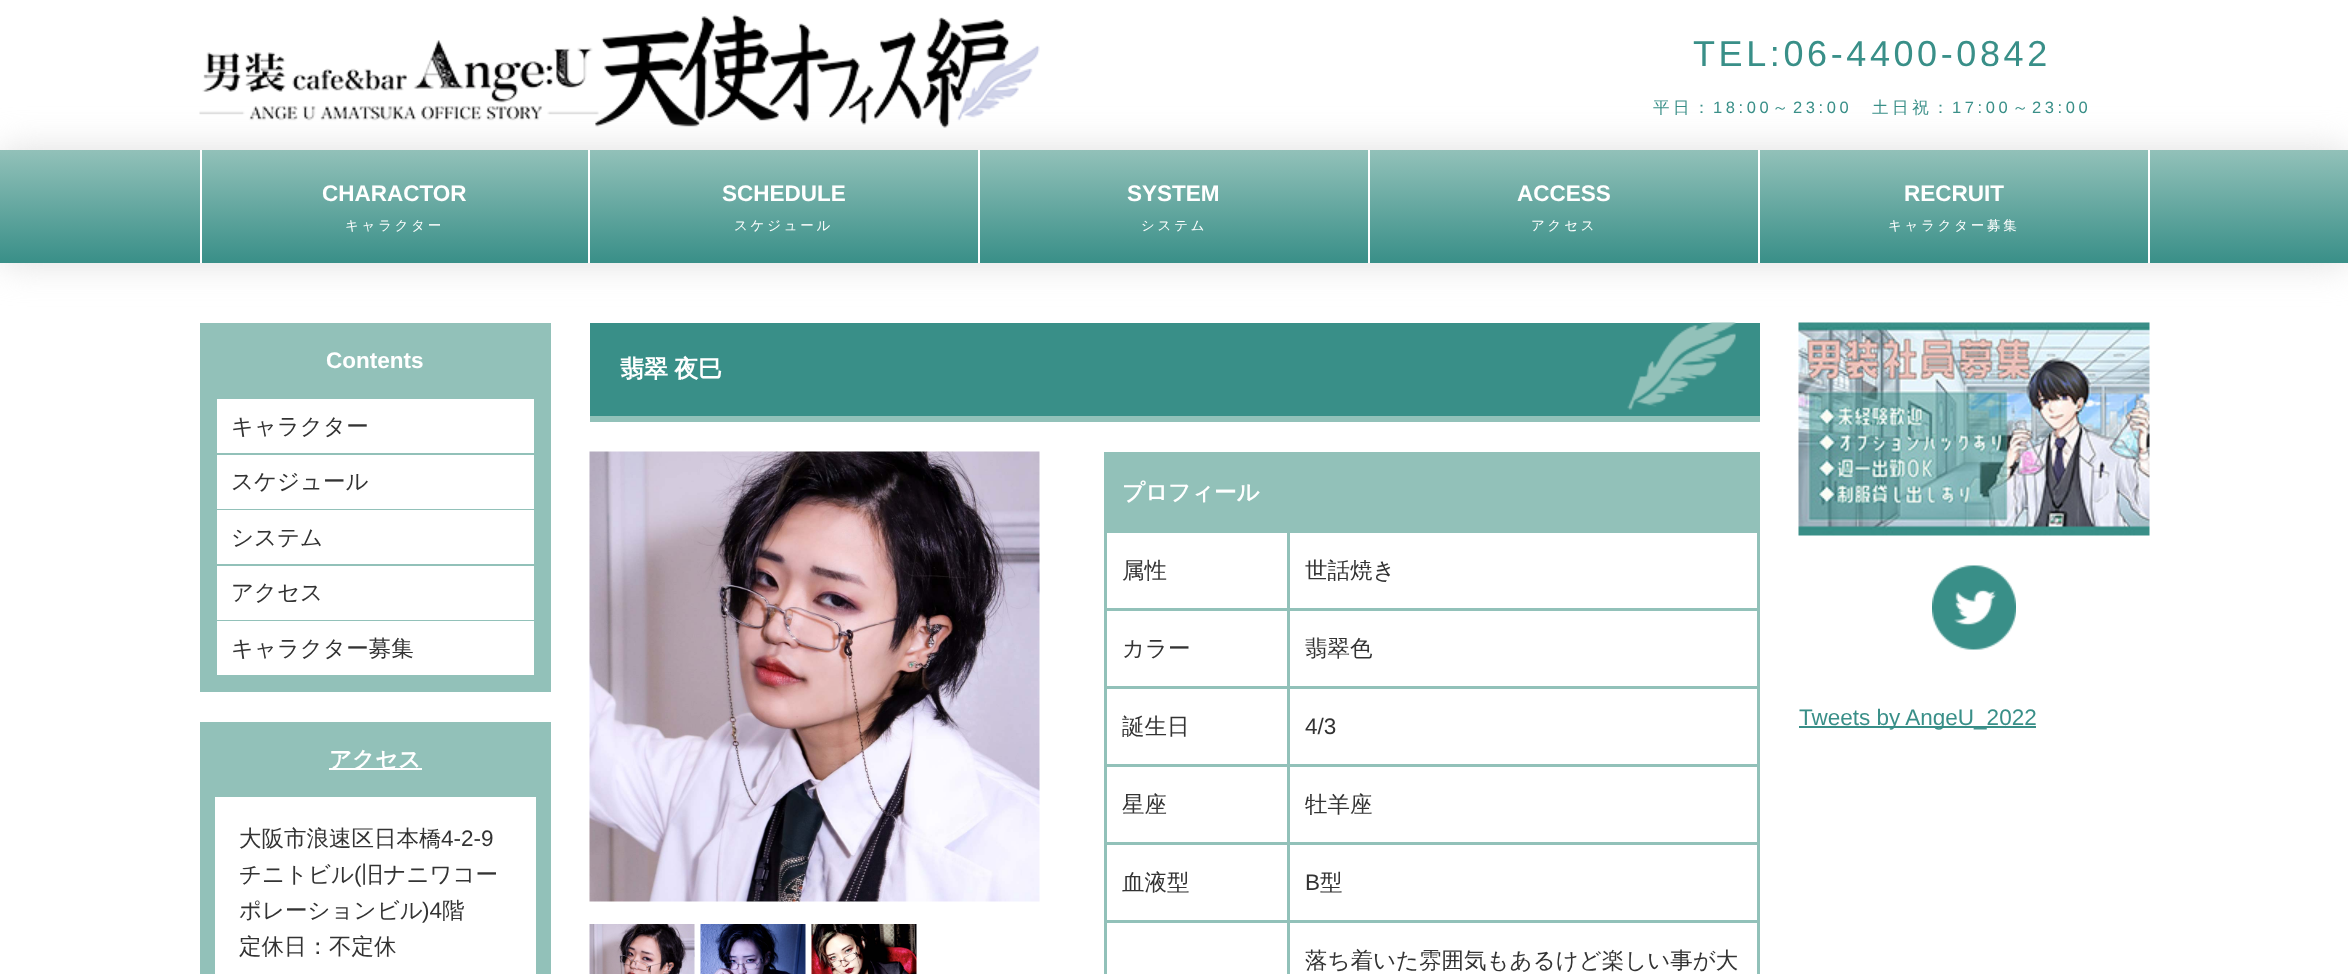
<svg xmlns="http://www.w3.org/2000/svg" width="2348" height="974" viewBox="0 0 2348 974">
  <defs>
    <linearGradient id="g1" gradientUnits="userSpaceOnUse" x1="1175" y1="150" x2="1175" y2="263"><stop offset="0" stop-color="rgb(146,193,185)"/><stop offset="1" stop-color="rgb(57,143,136)"/></linearGradient>
  </defs>
  <rect width="100%" height="100%" fill="rgb(255,255,255)"/>
  <image x="199" y="14" width="841" height="114" href="pic1.png"/>
  <text x="1693" y="66" font-family="Liberation Sans" font-size="36" letter-spacing="3.6" fill="rgb(57,143,136)">TEL:06-4400-0842</text>
  <text x="1653" y="113" font-family="WenQuanYi Zen Hei" font-size="16.5" font-weight="500" letter-spacing="3.6" fill="rgb(57,143,136)">平日：</text>
  <text x="1713" y="113" font-family="Liberation Sans" font-size="16.5" letter-spacing="3.6" fill="rgb(57,143,136)">18:00</text>
  <text x="1772" y="113" font-family="WenQuanYi Zen Hei" font-size="16.5" font-weight="500" letter-spacing="3.6" fill="rgb(57,143,136)">～</text>
  <text x="1793" y="113" font-family="Liberation Sans" font-size="16.5" letter-spacing="3.6" fill="rgb(57,143,136)">23:00</text>
  <text x="1872" y="113" font-family="WenQuanYi Zen Hei" font-size="16.5" font-weight="500" letter-spacing="3.6" fill="rgb(57,143,136)">土日祝：</text>
  <text x="1952" y="113" font-family="Liberation Sans" font-size="16.5" letter-spacing="3.6" fill="rgb(57,143,136)">17:00</text>
  <text x="2012" y="113" font-family="WenQuanYi Zen Hei" font-size="16.5" font-weight="500" letter-spacing="3.6" fill="rgb(57,143,136)">～</text>
  <text x="2032" y="113" font-family="Liberation Sans" font-size="16.5" letter-spacing="3.6" fill="rgb(57,143,136)">23:00</text>
  <rect x="0" y="150" width="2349" height="113" fill="rgb(222,222,222)" filter="blur(18px)"/>
  <rect x="0" y="150" width="2348" height="113" fill="url(#g1)"/>
  <rect x="588" y="150" width="2" height="113" fill="rgb(255,255,255)"/>
  <rect x="200" y="150" width="2" height="113" fill="rgb(255,255,255)"/>
  <text x="322" y="201" font-family="Liberation Sans" font-size="22.5" font-weight="bold" fill="rgb(255,255,255)">CHARACTOR</text>
  <text x="345" y="230" font-family="WenQuanYi Zen Hei" font-size="13.5" font-weight="500" letter-spacing="2.75" fill="rgb(255,255,255)">キャラクター</text>
  <rect x="978" y="150" width="2" height="113" fill="rgb(255,255,255)"/>
  <text x="722" y="201" font-family="Liberation Sans" font-size="22.5" font-weight="bold" fill="rgb(255,255,255)">SCHEDULE</text>
  <text x="734" y="230" font-family="WenQuanYi Zen Hei" font-size="13.5" font-weight="500" letter-spacing="2.75" fill="rgb(255,255,255)">スケジュール</text>
  <rect x="1368" y="150" width="2" height="113" fill="rgb(255,255,255)"/>
  <text x="1127" y="201" font-family="Liberation Sans" font-size="22.5" font-weight="bold" fill="rgb(255,255,255)">SYSTEM</text>
  <text x="1141" y="230" font-family="WenQuanYi Zen Hei" font-size="13.5" font-weight="500" letter-spacing="2.75" fill="rgb(255,255,255)">システム</text>
  <rect x="1758" y="150" width="2" height="113" fill="rgb(255,255,255)"/>
  <text x="1517" y="201" font-family="Liberation Sans" font-size="22.5" font-weight="bold" fill="rgb(255,255,255)">ACCESS</text>
  <text x="1531" y="230" font-family="WenQuanYi Zen Hei" font-size="13.5" font-weight="500" letter-spacing="2.75" fill="rgb(255,255,255)">アクセス</text>
  <rect x="2148" y="150" width="2" height="113" fill="rgb(255,255,255)"/>
  <text x="1904" y="201" font-family="Liberation Sans" font-size="22.5" font-weight="bold" fill="rgb(255,255,255)">RECRUIT</text>
  <text x="1888" y="230" font-family="WenQuanYi Zen Hei" font-size="13.5" font-weight="500" letter-spacing="2.75" fill="rgb(255,255,255)">キャラクター募集</text>
  <rect x="200" y="323" width="351" height="369" fill="rgb(146,193,185)"/>
  <text x="326" y="368" font-family="Liberation Sans" font-size="22.5" font-weight="bold" fill="rgb(255,255,255)">Contents</text>
  <rect x="217" y="399" width="317" height="54" fill="rgb(255,255,255)"/>
  <text x="231" y="434" font-family="WenQuanYi Zen Hei" font-size="22.5" font-weight="500" fill="rgb(51,51,51)">キャラクター</text>
  <rect x="217" y="455" width="317" height="54" fill="rgb(255,255,255)"/>
  <text x="231" y="489" font-family="WenQuanYi Zen Hei" font-size="22.5" font-weight="500" fill="rgb(51,51,51)">スケジュール</text>
  <rect x="217" y="510" width="317" height="54" fill="rgb(255,255,255)"/>
  <text x="231" y="545" font-family="WenQuanYi Zen Hei" font-size="22.5" font-weight="500" fill="rgb(51,51,51)">システム</text>
  <rect x="217" y="566" width="317" height="54" fill="rgb(255,255,255)"/>
  <text x="231" y="600" font-family="WenQuanYi Zen Hei" font-size="22.5" font-weight="500" fill="rgb(51,51,51)">アクセス</text>
  <rect x="217" y="621" width="317" height="54" fill="rgb(255,255,255)"/>
  <text x="231" y="656" font-family="WenQuanYi Zen Hei" font-size="22.5" font-weight="500" fill="rgb(51,51,51)">キャラクター募集</text>
  <rect x="200" y="722" width="351" height="252" fill="rgb(146,193,185)"/>
  <rect x="329" y="768" width="93" height="2" fill="rgb(255,255,255)"/>
  <text x="329" y="767" font-family="WenQuanYi Zen Hei" font-size="22.5" font-weight="bold" fill="rgb(255,255,255)">アクセス</text>
  <rect x="215" y="797" width="321" height="177" fill="rgb(255,255,255)"/>
  <text x="239" y="846" font-family="WenQuanYi Zen Hei" font-size="22.5" font-weight="500" fill="rgb(51,51,51)">大阪市浪速区日本橋</text>
  <text x="441" y="846" font-family="Liberation Sans" font-size="22.5" fill="rgb(51,51,51)">4-2-9</text>
  <text x="239" y="882" font-family="WenQuanYi Zen Hei" font-size="22.5" font-weight="500" fill="rgb(51,51,51)">チニトビル</text>
  <text x="354" y="882" font-family="Liberation Sans" font-size="22.5" fill="rgb(51,51,51)">(</text>
  <g font-family="WenQuanYi Zen Hei" font-size="22.5" font-weight="500" fill="rgb(51,51,51)">
    <text x="361" y="882">旧ナニワコー</text>
    <text x="239" y="918">ポレーションビル</text>
  </g>
  <text x="422" y="918" font-family="Liberation Sans" font-size="22.5" fill="rgb(51,51,51)">)4</text>
  <g font-family="WenQuanYi Zen Hei" font-size="22.5" font-weight="500" fill="rgb(51,51,51)">
    <text x="442" y="918">階</text>
    <text x="239" y="954">定休日：不定休</text>
  </g>
  <rect x="590" y="323" width="1170" height="93" fill="rgb(57,143,136)"/>
  <image x="1627" y="322" width="109" height="88" href="pic2.png"/>
  <rect x="590" y="416" width="1170" height="6" fill="rgb(146,193,185)"/>
  <text x="620" y="377" word-spacing="-1" font-family="WenQuanYi Zen Hei" font-size="24" font-weight="bold" fill="rgb(255,255,255)">翡翠 夜巳</text>
  <image x="589" y="451" width="451" height="451" href="pic3.png"/>
  <image x="589" y="924" width="106" height="50" href="pic4.png"/>
  <image x="700" y="924" width="106" height="50" href="pic5.png"/>
  <image x="811" y="924" width="106" height="50" href="pic6.png"/>
  <rect x="1757" y="452" width="3" height="522" fill="rgb(146,193,185)"/>
  <rect x="1104" y="452" width="3" height="522" fill="rgb(146,193,185)"/>
  <rect x="1107" y="452" width="650" height="78" fill="rgb(146,193,185)"/>
  <text x="1122" y="500" font-family="WenQuanYi Zen Hei" font-size="22.5" font-weight="bold" fill="rgb(255,255,255)">プロフィール</text>
  <rect x="1287" y="530" width="473" height="3" fill="rgb(146,193,185)"/>
  <rect x="1287" y="608" width="473" height="3" fill="rgb(146,193,185)"/>
  <rect x="1287" y="686" width="473" height="3" fill="rgb(146,193,185)"/>
  <rect x="1287" y="764" width="473" height="3" fill="rgb(146,193,185)"/>
  <rect x="1287" y="842" width="473" height="3" fill="rgb(146,193,185)"/>
  <rect x="1287" y="920" width="473" height="3" fill="rgb(146,193,185)"/>
  <rect x="1287" y="920" width="3" height="54" fill="rgb(146,193,185)"/>
  <rect x="1104" y="920" width="186" height="3" fill="rgb(146,193,185)"/>
  <rect x="1287" y="842" width="3" height="81" fill="rgb(146,193,185)"/>
  <rect x="1104" y="842" width="186" height="3" fill="rgb(146,193,185)"/>
  <rect x="1287" y="764" width="3" height="81" fill="rgb(146,193,185)"/>
  <rect x="1104" y="764" width="186" height="3" fill="rgb(146,193,185)"/>
  <rect x="1287" y="686" width="3" height="81" fill="rgb(146,193,185)"/>
  <rect x="1104" y="686" width="186" height="3" fill="rgb(146,193,185)"/>
  <rect x="1287" y="608" width="3" height="81" fill="rgb(146,193,185)"/>
  <rect x="1104" y="608" width="186" height="3" fill="rgb(146,193,185)"/>
  <rect x="1287" y="530" width="3" height="81" fill="rgb(146,193,185)"/>
  <rect x="1104" y="530" width="186" height="3" fill="rgb(146,193,185)"/>
  <g font-family="WenQuanYi Zen Hei" font-size="22.5" font-weight="500" fill="rgb(51,51,51)">
    <text x="1122" y="578">属性</text>
    <text x="1305" y="578">世話焼き</text>
    <text x="1122" y="656">カラー</text>
    <text x="1305" y="656">翡翠色</text>
    <text x="1122" y="734">誕生日</text>
  </g>
  <text x="1305" y="734" font-family="Liberation Sans" font-size="22.5" fill="rgb(51,51,51)">4/3</text>
  <g font-family="WenQuanYi Zen Hei" font-size="22.5" font-weight="500" fill="rgb(51,51,51)">
    <text x="1122" y="812">星座</text>
    <text x="1305" y="812">牡羊座</text>
    <text x="1122" y="890">血液型</text>
  </g>
  <text x="1305" y="890" font-family="Liberation Sans" font-size="22.5" fill="rgb(51,51,51)">B</text>
  <g font-family="WenQuanYi Zen Hei" font-size="22.5" font-weight="500" fill="rgb(51,51,51)">
    <text x="1320" y="890">型</text>
    <text x="1305" y="968">落ち着いた雰囲気もあるけど楽しい事が大</text>
  </g>
  <image x="1798" y="322" width="352" height="214" href="pic7.png"/>
  <image x="1932" y="565" width="84" height="85" href="pic8.png"/>
  <rect x="1799" y="726" width="237" height="2" fill="rgb(57,143,136)"/>
  <text x="1799" y="725" font-family="Liberation Sans" font-size="22.5" fill="rgb(57,143,136)">Tweets by AngeU_2022</text>
</svg>
